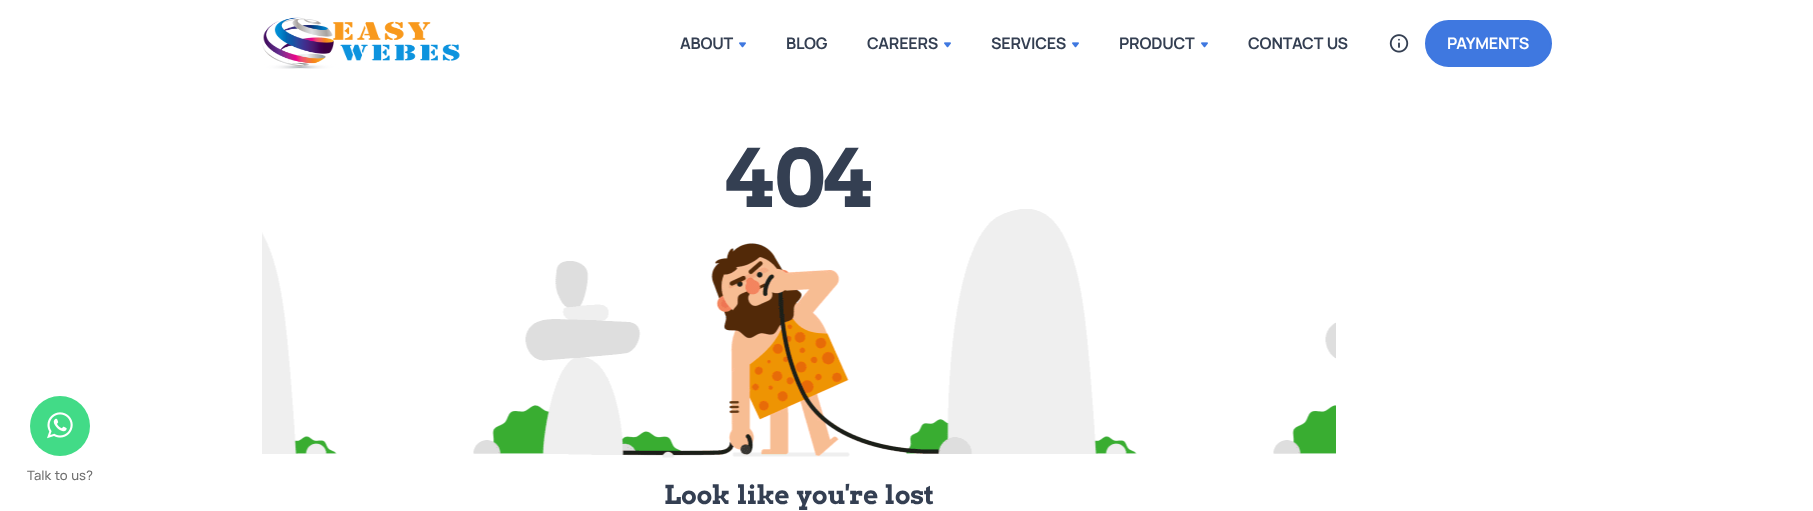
<svg xmlns="http://www.w3.org/2000/svg" width="1813" height="511" viewBox="0 0 1813 511">
  <rect width="100%" height="100%" fill="rgb(255,255,255)"/>
  <image x="262" y="17" width="198" height="52" href="pic1.png"/>
  <text x="680" y="49" font-family="Manrope" font-size="16" font-weight="bold" letter-spacing="-0.2" fill="rgb(52,63,82)">ABOUT</text>
  <image x="739" y="42" width="7" height="6" href="pic2.png"/>
  <g font-family="Manrope" font-size="16" font-weight="bold" letter-spacing="-0.2" fill="rgb(52,63,82)">
    <text x="786" y="49">BLOG</text>
    <text x="867" y="49">CAREERS</text>
  </g>
  <image x="944" y="42" width="7" height="6" href="pic2.png"/>
  <text x="991" y="49" font-family="Manrope" font-size="16" font-weight="bold" letter-spacing="-0.2" fill="rgb(52,63,82)">SERVICES</text>
  <image x="1072" y="42" width="7" height="6" href="pic2.png"/>
  <text x="1119" y="49" font-family="Manrope" font-size="16" font-weight="bold" letter-spacing="-0.2" fill="rgb(52,63,82)">PRODUCT</text>
  <image x="1201" y="42" width="7" height="6" href="pic2.png"/>
  <text x="1248" y="49" word-spacing="1" font-family="Manrope" font-size="16" font-weight="bold" letter-spacing="-0.2" fill="rgb(52,63,82)">CONTACT US</text>
  <image x="1389" y="34" width="20" height="19" href="pic3.png"/>
  <rect x="1426" y="21" width="125" height="45" rx="22.5" fill="rgb(63,120,224)" stroke="rgb(63,120,224)" stroke-width="2"/>
  <text x="1447" y="49" font-family="Manrope" font-size="16" font-weight="bold" letter-spacing="-0.2" fill="rgb(255,255,255)">PAYMENTS</text>
  <circle cx="60" cy="426" r="30" fill="rgb(66,219,135)"/>
  <image x="47" y="412" width="26" height="27" href="pic4.png"/>
  <text x="27" y="480" word-spacing="1" font-family="Manrope" font-size="13" font-weight="500" fill="rgb(112,112,112)">Talk to us?</text>
  <image x="262" y="209" width="1074" height="249" href="pic5.png"/>
  <text x="726" y="207" font-family="Arvo" font-size="80" font-weight="bold" letter-spacing="-0.2" fill="rgb(52,63,82)">404</text>
  <text x="664" y="504" word-spacing="2" font-family="Arvo" font-size="26" font-weight="bold" letter-spacing="-0.2" fill="rgb(52,63,82)">Look like you're lost</text>
</svg>
